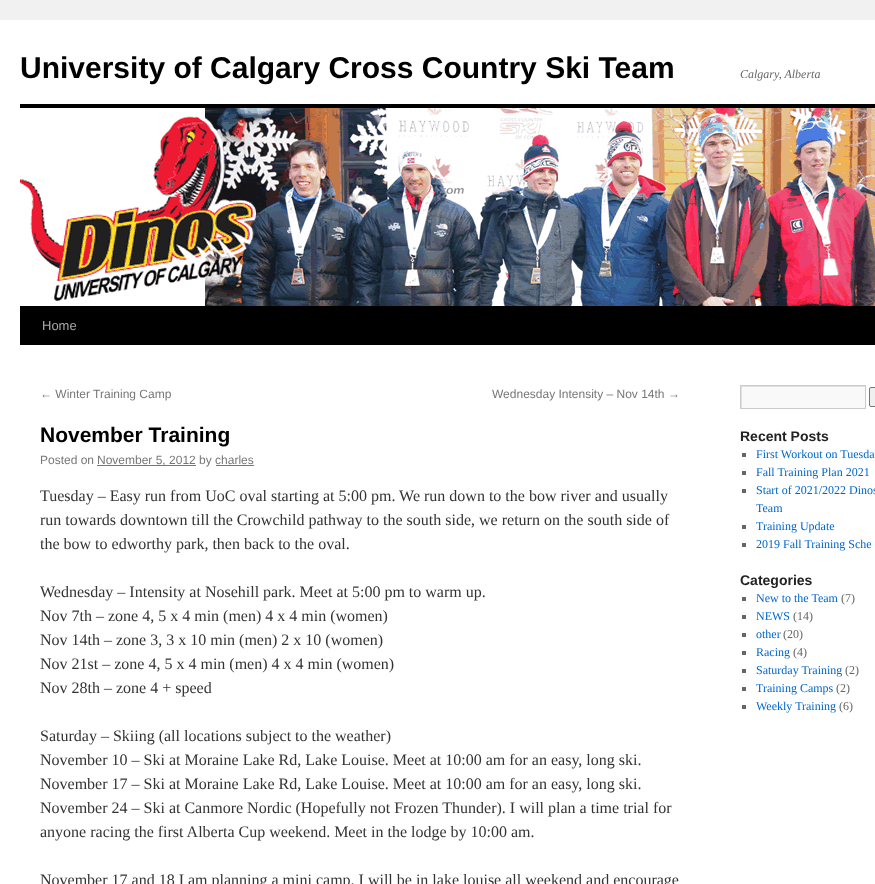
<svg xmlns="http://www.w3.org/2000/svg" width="875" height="884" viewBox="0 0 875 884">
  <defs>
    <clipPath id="clip1"><rect x="741" y="386" width="124" height="22"/></clipPath>
  </defs>
  <rect width="100%" height="100%" fill="rgb(241,241,241)"/>
  <rect x="0" y="20" width="875" height="864" fill="rgb(255,255,255)"/>
  <text x="20" y="78" font-family="Liberation Sans" font-size="30" font-weight="bold" fill="rgb(0,0,0)">University of Calgary Cross Country Ski Team</text>
  <text x="740" y="78" font-family="Liberation Serif" font-size="12" font-style="italic" fill="rgb(102,102,102)">Calgary, Alberta</text>
  <rect x="20" y="104" width="855" height="4" fill="rgb(0,0,0)"/>
  <rect x="20" y="306" width="855" height="39" fill="rgb(0,0,0)"/>
  <image x="20" y="108" width="855" height="198" href="pic1.png"/>
  <text x="42" y="330" font-family="Liberation Sans" font-size="13" fill="rgb(170,170,170)">Home</text>
  <g font-family="Liberation Sans" font-size="12" fill="rgb(119,119,119)">
    <text x="40" y="398">← Winter Training Camp</text>
    <text x="492" y="398">Wednesday Intensity – Nov 14th →</text>
  </g>
  <text x="40" y="442" font-family="Liberation Sans" font-size="21" font-weight="bold" fill="rgb(0,0,0)">November Training</text>
  <text x="40" y="464" font-family="Liberation Sans" font-size="12" fill="rgb(119,119,119)">Posted on</text>
  <rect x="97" y="465" width="99" height="1" fill="rgb(119,119,119)"/>
  <text x="97" y="464" font-family="Liberation Sans" font-size="12" fill="rgb(119,119,119)">November 5, 2012 by charles</text>
  <rect x="216" y="465" width="38" height="1" fill="rgb(119,119,119)"/>
  <g font-family="Liberation Serif" font-size="16" fill="rgb(51,51,51)">
    <text>
      <tspan x="40" y="501">Tuesday – Easy run from UoC oval starting at 5:00 pm. We run down to the bow river and usually</tspan>
      <tspan x="40" y="525">run towards downtown till the Crowchild pathway to the south side, we return on the south side of</tspan>
      <tspan x="40" y="549">the bow to edworthy park, then back to the oval.</tspan>
    </text>
    <text>
      <tspan x="40" y="597">Wednesday – Intensity at Nosehill park. Meet at 5:00 pm to warm up.</tspan>
      <tspan x="40" y="621">Nov 7th – zone 4, 5 x 4 min (men) 4 x 4 min (women)</tspan>
      <tspan x="40" y="645">Nov 14th – zone 3, 3 x 10 min (men) 2 x 10 (women)</tspan>
      <tspan x="40" y="669">Nov 21st – zone 4, 5 x 4 min (men) 4 x 4 min (women)</tspan>
      <tspan x="40" y="693">Nov 28th – zone 4 + speed</tspan>
    </text>
    <text>
      <tspan x="40" y="741">Saturday – Skiing (all locations subject to the weather)</tspan>
      <tspan x="40" y="765">November 10 – Ski at Moraine Lake Rd, Lake Louise. Meet at 10:00 am for an easy, long ski.</tspan>
      <tspan x="40" y="789">November 17 – Ski at Moraine Lake Rd, Lake Louise. Meet at 10:00 am for an easy, long ski.</tspan>
      <tspan x="40" y="813">November 24 – Ski at Canmore Nordic (Hopefully not Frozen Thunder). I will plan a time trial for</tspan>
      <tspan x="40" y="837">anyone racing the first Alberta Cup weekend. Meet in the lodge by 10:00 am.</tspan>
    </text>
    <text x="40" y="885">November 17 and 18 I am planning a mini camp. I will be in lake louise all weekend and encourage</text>
  </g>
  <rect x="742" y="387" width="123" height="21" fill="rgb(249,249,249)"/>
  <g clip-path="url(#clip1)">
    <path d="M642 287H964V507H642ZM742 387H866V409H742Z" fill="rgb(224,224,224)" fill-rule="evenodd"/>
  </g>
  <rect x="740.5" y="385.5" width="125" height="23" fill="none" stroke="rgb(204,204,204)"/>
  <rect x="869.5" y="387.5" width="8" height="19" rx="1.5" fill="rgb(239,239,239)" stroke="rgb(118,118,118)"/>
  <text x="740" y="441" font-family="Liberation Sans" font-size="14" font-weight="bold" fill="rgb(34,34,34)">Recent Posts</text>
  <rect x="742" y="453" width="4" height="4" fill="rgb(102,102,102)"/>
  <text x="756" y="458" font-family="Liberation Serif" font-size="12" fill="rgb(0,102,204)">First Workout on Tuesda</text>
  <rect x="742" y="471" width="4" height="4" fill="rgb(102,102,102)"/>
  <text x="756" y="476" font-family="Liberation Serif" font-size="12" fill="rgb(0,102,204)">Fall Training Plan 2021</text>
  <rect x="742" y="489" width="4" height="4" fill="rgb(102,102,102)"/>
  <g font-family="Liberation Serif" font-size="12" fill="rgb(0,102,204)">
    <text>
      <tspan x="756" y="494">Start of 2021/2022 Dinos</tspan>
      <tspan x="756" y="512">Team</tspan>
    </text>
  </g>
  <rect x="742" y="525" width="4" height="4" fill="rgb(102,102,102)"/>
  <text x="756" y="530" font-family="Liberation Serif" font-size="12" fill="rgb(0,102,204)">Training Update</text>
  <rect x="742" y="543" width="4" height="4" fill="rgb(102,102,102)"/>
  <text x="756" y="548" font-family="Liberation Serif" font-size="12" fill="rgb(0,102,204)">2019 Fall Training Sche</text>
  <text x="740" y="585" font-family="Liberation Sans" font-size="14" font-weight="bold" fill="rgb(34,34,34)">Categories</text>
  <rect x="742" y="597" width="4" height="4" fill="rgb(102,102,102)"/>
  <text x="756" y="602" font-family="Liberation Serif" font-size="12" fill="rgb(0,102,204)">New to the Team</text>
  <text x="841" y="602" font-family="Liberation Serif" font-size="12" fill="rgb(102,102,102)">(7)</text>
  <rect x="742" y="615" width="4" height="4" fill="rgb(102,102,102)"/>
  <text x="756" y="620" font-family="Liberation Serif" font-size="12" fill="rgb(0,102,204)">NEWS</text>
  <text x="793" y="620" font-family="Liberation Serif" font-size="12" fill="rgb(102,102,102)">(14)</text>
  <rect x="742" y="633" width="4" height="4" fill="rgb(102,102,102)"/>
  <text x="756" y="638" font-family="Liberation Serif" font-size="12" fill="rgb(0,102,204)">other</text>
  <text x="783" y="638" font-family="Liberation Serif" font-size="12" fill="rgb(102,102,102)">(20)</text>
  <rect x="742" y="651" width="4" height="4" fill="rgb(102,102,102)"/>
  <text x="756" y="656" font-family="Liberation Serif" font-size="12" fill="rgb(0,102,204)">Racing</text>
  <text x="793" y="656" font-family="Liberation Serif" font-size="12" fill="rgb(102,102,102)">(4)</text>
  <rect x="742" y="669" width="4" height="4" fill="rgb(102,102,102)"/>
  <text x="756" y="674" font-family="Liberation Serif" font-size="12" fill="rgb(0,102,204)">Saturday Training</text>
  <text x="845" y="674" font-family="Liberation Serif" font-size="12" fill="rgb(102,102,102)">(2)</text>
  <rect x="742" y="687" width="4" height="4" fill="rgb(102,102,102)"/>
  <text x="756" y="692" font-family="Liberation Serif" font-size="12" fill="rgb(0,102,204)">Training Camps</text>
  <text x="836" y="692" font-family="Liberation Serif" font-size="12" fill="rgb(102,102,102)">(2)</text>
  <rect x="742" y="705" width="4" height="4" fill="rgb(102,102,102)"/>
  <text x="756" y="710" font-family="Liberation Serif" font-size="12" fill="rgb(0,102,204)">Weekly Training</text>
  <text x="839" y="710" font-family="Liberation Serif" font-size="12" fill="rgb(102,102,102)">(6)</text>
</svg>
